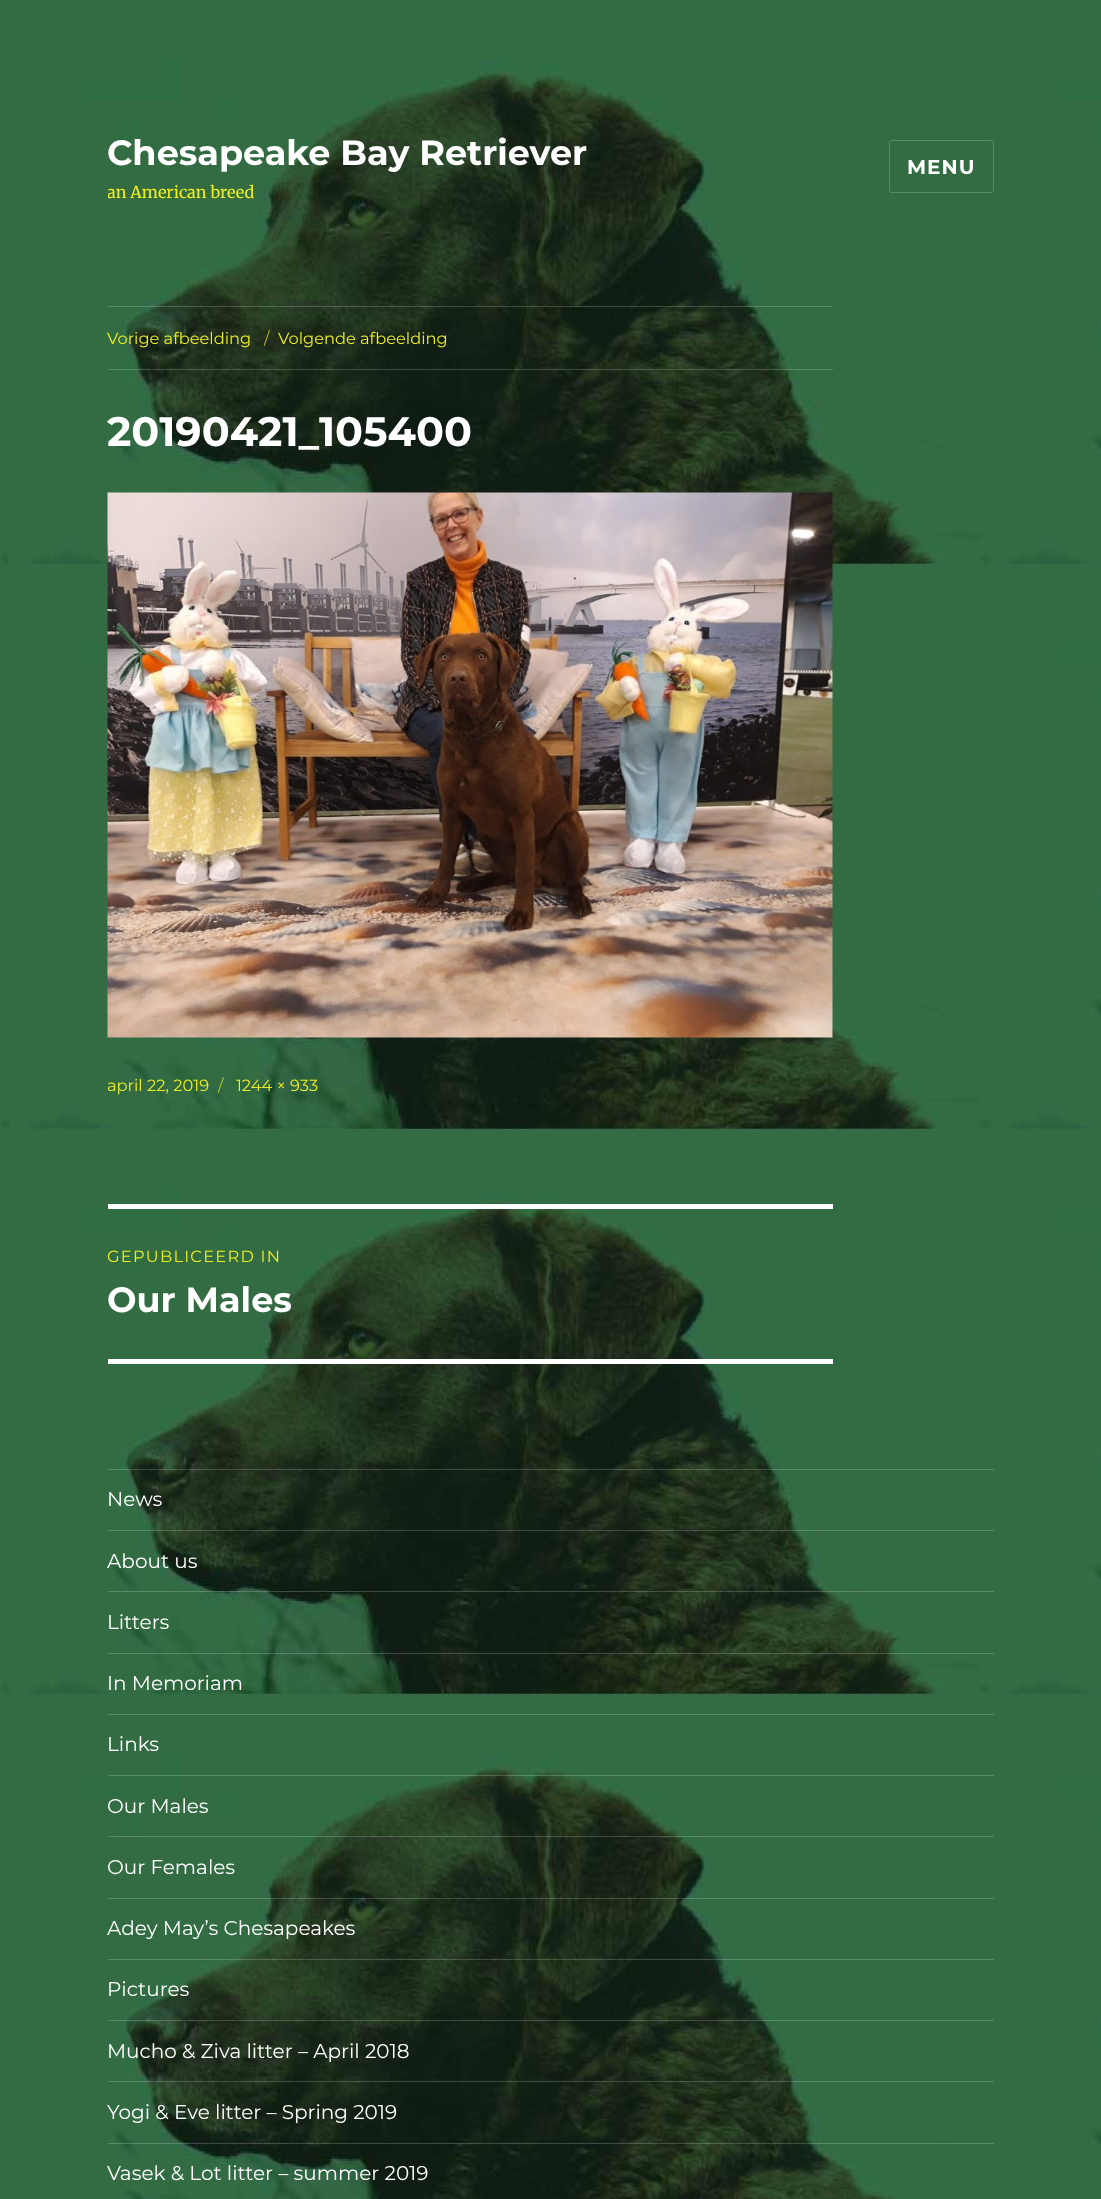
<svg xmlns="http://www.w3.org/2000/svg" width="1101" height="2199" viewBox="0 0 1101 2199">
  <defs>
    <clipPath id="clip1"><rect x="108" y="131" width="480" height="70"/></clipPath>
  </defs>
  <rect width="100%" height="100%" fill="rgb(255,255,255)"/>
  <image x="0" y="0" width="1101" height="2199" href="pic1.png"/>
  <text x="107" y="165" font-family="Montserrat" font-size="35" font-weight="bold" fill="rgb(255,255,255)">Chesapeake Bay Retriever</text>
  <g clip-path="url(#clip1)">
    <text x="107" y="198" font-family="Merriweather" font-size="16.25" fill="rgb(238,238,34)">an American breed</text>
  </g>
  <rect x="889.5" y="140.5" width="104" height="52" rx="2" fill="none" stroke="rgb(92,137,105)"/>
  <text x="907" y="174" font-family="Montserrat" font-size="20" font-weight="bold" letter-spacing="1" fill="rgb(255,255,255)">MENU</text>
  <rect x="108" y="306" width="725" height="1" fill="rgba(255,255,255,0.2)"/>
  <rect x="108" y="369" width="725" height="1" fill="rgba(255,255,255,0.2)"/>
  <text x="107" y="344" font-family="Montserrat" font-size="16.25" fill="rgb(238,238,34)">Vorige afbeelding</text>
  <text x="264" y="344" font-family="Montserrat" font-size="16.25" fill="rgb(176,180,32)">/</text>
  <text x="278" y="344" font-family="Montserrat" font-size="16.25" fill="rgb(238,238,34)">Volgende afbeelding</text>
  <text x="107" y="446" font-family="Montserrat" font-size="41.25" font-weight="bold" fill="rgb(255,255,255)">20190421_105400</text>
  <image x="107" y="492" width="726" height="546" href="pic2.png"/>
  <text x="107" y="1091" font-family="Montserrat" font-size="16.25" fill="rgb(238,238,34)">april 22, 2019</text>
  <text x="218" y="1091" font-family="Montserrat" font-size="16.25" fill="rgb(181,198,44)">/</text>
  <text x="236" y="1091" font-family="Montserrat" font-size="16.25" fill="rgb(238,238,34)">1244 × 933</text>
  <rect x="108" y="1204" width="725" height="5" fill="rgb(255,255,255)"/>
  <rect x="108" y="1359" width="725" height="5" fill="rgb(255,255,255)"/>
  <text x="107" y="1262" font-family="Montserrat" font-size="16.25" letter-spacing="1.25" fill="rgb(238,238,34)">GEPUBLICEERD IN</text>
  <text x="107" y="1312" font-family="Montserrat" font-size="35" font-weight="bold" fill="rgb(255,255,255)">Our Males</text>
  <rect x="108" y="1469" width="886" height="1" fill="rgba(255,255,255,0.2)"/>
  <text x="107" y="1506" font-family="Montserrat" font-size="20" fill="rgb(255,255,255)">News</text>
  <rect x="108" y="1530" width="886" height="1" fill="rgba(255,255,255,0.2)"/>
  <text x="107" y="1568" font-family="Montserrat" font-size="20" fill="rgb(255,255,255)">About us</text>
  <rect x="108" y="1591" width="886" height="1" fill="rgba(255,255,255,0.2)"/>
  <text x="107" y="1629" font-family="Montserrat" font-size="20" fill="rgb(255,255,255)">Litters</text>
  <rect x="108" y="1653" width="886" height="1" fill="rgba(255,255,255,0.2)"/>
  <text x="107" y="1690" font-family="Montserrat" font-size="20" fill="rgb(255,255,255)">In Memoriam</text>
  <rect x="108" y="1714" width="886" height="1" fill="rgb(92,137,105)"/>
  <text x="107" y="1751" font-family="Montserrat" font-size="20" fill="rgb(255,255,255)">Links</text>
  <rect x="108" y="1775" width="886" height="1" fill="rgba(255,255,255,0.2)"/>
  <text x="107" y="1813" font-family="Montserrat" font-size="20" fill="rgb(255,255,255)">Our Males</text>
  <rect x="108" y="1836" width="886" height="1" fill="rgba(255,255,255,0.2)"/>
  <text x="107" y="1874" font-family="Montserrat" font-size="20" fill="rgb(255,255,255)">Our Females</text>
  <rect x="108" y="1898" width="886" height="1" fill="rgba(255,255,255,0.2)"/>
  <text x="107" y="1935" font-family="Montserrat" font-size="20" fill="rgb(255,255,255)">Adey May’s Chesapeakes</text>
  <rect x="108" y="1959" width="886" height="1" fill="rgba(255,255,255,0.2)"/>
  <text x="107" y="1996" font-family="Montserrat" font-size="20" fill="rgb(255,255,255)">Pictures</text>
  <rect x="108" y="2020" width="886" height="1" fill="rgba(255,255,255,0.2)"/>
  <text x="107" y="2058" font-family="Montserrat" font-size="20" fill="rgb(255,255,255)">Mucho &amp; Ziva litter – April 2018</text>
  <rect x="108" y="2081" width="886" height="1" fill="rgba(255,255,255,0.2)"/>
  <text x="107" y="2119" font-family="Montserrat" font-size="20" fill="rgb(255,255,255)">Yogi &amp; Eve litter – Spring 2019</text>
  <rect x="108" y="2143" width="886" height="1" fill="rgba(255,255,255,0.2)"/>
  <text x="107" y="2180" font-family="Montserrat" font-size="20" fill="rgb(255,255,255)">Vasek &amp; Lot litter – summer 2019</text>
</svg>
